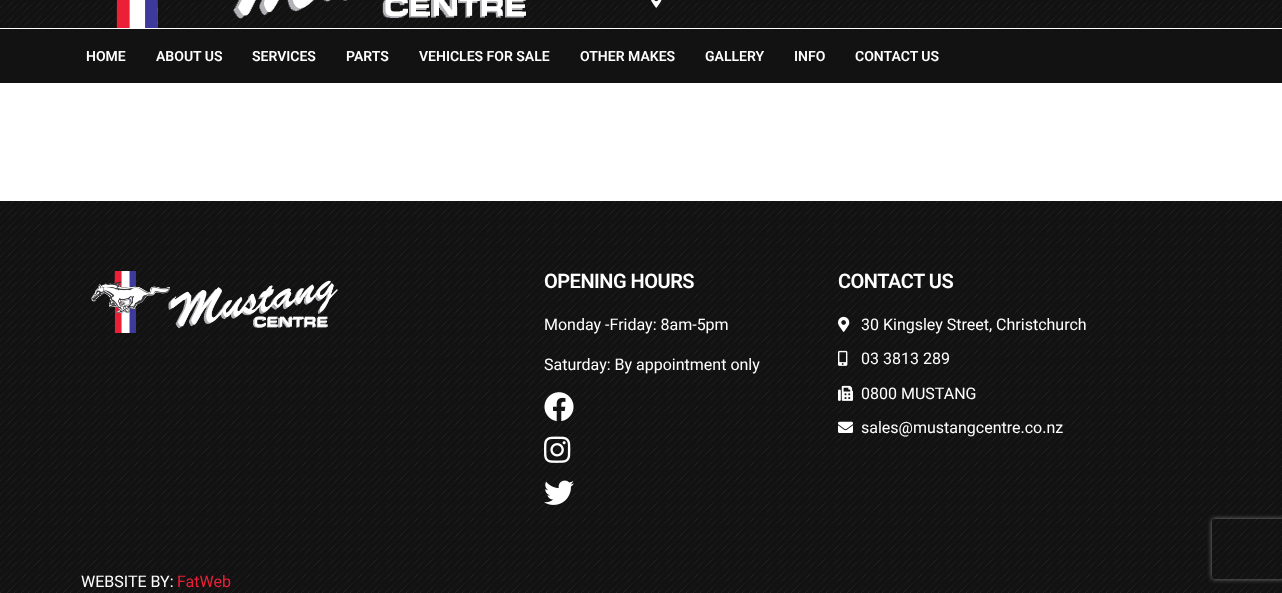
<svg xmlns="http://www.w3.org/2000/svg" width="1282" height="593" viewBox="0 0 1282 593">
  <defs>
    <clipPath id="clip1"><path d="M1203 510H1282V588H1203ZM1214 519H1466C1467 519 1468 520 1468 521V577C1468 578 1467 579 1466 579H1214C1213 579 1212 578 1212 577V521C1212 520 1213 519 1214 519Z" clip-rule="evenodd"/></clipPath>
  </defs>
  <rect width="100%" height="100%" fill="rgb(255,255,255)"/>
  <rect x="0" y="0" width="1282" height="28" fill="rgb(18,18,18)"/>
  <image x="0" y="0" width="1282" height="28" href="pic1.png"/>
  <image x="116" y="0" width="410" height="28" href="pic2.png"/>
  <image x="651" y="0" width="11" height="8" href="pic3.png"/>
  <rect x="0" y="29" width="1282" height="54" fill="rgb(18,18,18)"/>
  <g font-family="Roboto" font-size="14" font-weight="600" fill="rgb(255,255,255)">
    <text x="86" y="61">HOME</text>
    <text x="156" y="61">ABOUT US</text>
    <text x="252" y="61">SERVICES</text>
    <text x="346" y="61">PARTS</text>
    <text x="419" y="61">VEHICLES FOR SALE</text>
    <text x="580" y="61">OTHER MAKES</text>
    <text x="705" y="61">GALLERY</text>
    <text x="794" y="61">INFO</text>
    <text x="855" y="61">CONTACT US</text>
  </g>
  <rect x="0" y="201" width="1282" height="392" fill="rgb(18,18,18)"/>
  <image x="0" y="201" width="1282" height="392" href="pic4.png"/>
  <image x="91" y="271" width="247" height="62" href="pic5.png"/>
  <text x="544" y="288" font-family="Roboto" font-size="20" font-weight="600" letter-spacing="-0.5" fill="rgb(255,255,255)">OPENING HOURS</text>
  <g font-family="Roboto" font-size="16" fill="rgb(255,255,255)">
    <text x="544" y="330">Monday -Friday: 8am-5pm</text>
    <text x="544" y="370">Saturday: By appointment only</text>
  </g>
  <image x="544" y="392" width="30" height="30" href="pic6.png"/>
  <image x="544" y="436" width="27" height="27" href="pic7.png"/>
  <image x="544" y="480" width="30" height="25" href="pic8.png"/>
  <text x="838" y="288" font-family="Roboto" font-size="20" font-weight="600" letter-spacing="-0.5" fill="rgb(255,255,255)">CONTACT US</text>
  <image x="838" y="316" width="12" height="16" href="pic9.png"/>
  <text x="861" y="330" font-family="Roboto" font-size="16" fill="rgb(255,255,255)">30 Kingsley Street, Christchurch</text>
  <image x="838" y="350" width="10" height="16" href="pic10.png"/>
  <text x="861" y="364" font-family="Roboto" font-size="16" fill="rgb(255,255,255)">03 3813 289</text>
  <image x="838" y="385" width="15" height="16" href="pic11.png"/>
  <text x="861" y="399" font-family="Roboto" font-size="16" fill="rgb(255,255,255)">0800 MUSTANG</text>
  <image x="838" y="421" width="15" height="12" href="pic12.png"/>
  <g font-family="Roboto" font-size="16" fill="rgb(255,255,255)">
    <text x="861" y="433">sales@mustangcentre.co.nz</text>
    <text x="81" y="587">WEBSITE BY:</text>
  </g>
  <text x="177" y="587" font-family="Roboto" font-size="16" fill="rgb(235,32,54)">FatWeb</text>
  <g clip-path="url(#clip1)">
    <rect x="1212" y="519" width="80" height="60" rx="2" fill="rgb(128,128,128)" filter="blur(2.5px)"/>
  </g>
</svg>
